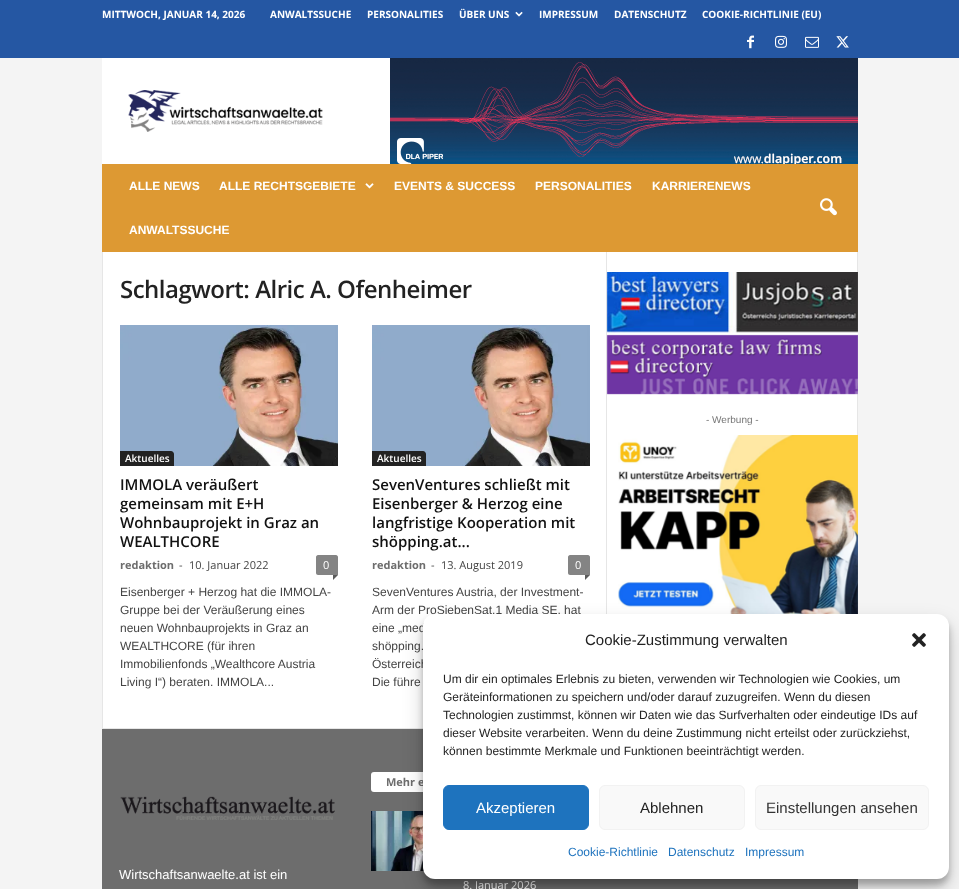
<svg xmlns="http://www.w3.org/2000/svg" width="959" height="889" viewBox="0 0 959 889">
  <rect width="100%" height="100%" fill="rgb(244,244,244)"/>
  <rect x="0" y="0" width="959" height="58" fill="rgb(37,87,163)"/>
  <g font-family="Open Sans" font-size="10" font-weight="bold" fill="rgb(255,255,255)">
    <text x="102" y="18">MITTWOCH, JANUAR 14, 2026</text>
    <text x="270" y="18">ANWALTSSUCHE</text>
    <text x="367" y="18">PERSONALITIES</text>
    <text x="459" y="18">ÜBER UNS</text>
  </g>
  <image x="515" y="11" width="8" height="6" href="pic1.png"/>
  <g font-family="Open Sans" font-size="10" font-weight="bold" fill="rgb(255,255,255)">
    <text x="539" y="18">IMPRESSUM</text>
    <text x="614" y="18">DATENSCHUTZ</text>
    <text x="702" y="18">COOKIE-RICHTLINIE (EU)</text>
  </g>
  <image x="747" y="35" width="7" height="14" href="pic2.png"/>
  <image x="775" y="35" width="12" height="13" href="pic3.png"/>
  <image x="805" y="36" width="14" height="12" href="pic4.png"/>
  <image x="836" y="36" width="13" height="12" href="pic5.png"/>
  <rect x="102" y="58" width="288" height="106" fill="rgb(255,255,255)"/>
  <image x="128" y="90" width="195" height="42" href="pic6.png"/>
  <image x="390" y="58" width="468" height="106" href="pic7.png"/>
  <rect x="102" y="164" width="756" height="88" fill="rgb(221,153,51)"/>
  <g font-family="Liberation Sans" font-size="12" font-weight="bold" fill="rgb(255,255,255)">
    <text x="129" y="190">ALLE NEWS</text>
    <text x="219" y="190">ALLE RECHTSGEBIETE</text>
  </g>
  <image x="365" y="183" width="9" height="6" href="pic8.png"/>
  <g font-family="Liberation Sans" font-size="12" font-weight="bold" fill="rgb(255,255,255)">
    <text x="394" y="190">EVENTS &amp; SUCCESS</text>
    <text x="535" y="190">PERSONALITIES</text>
    <text x="652" y="190">KARRIERENEWS</text>
    <text x="129" y="234">ANWALTSSUCHE</text>
  </g>
  <image x="820" y="198" width="17" height="18" href="pic9.png"/>
  <rect x="103" y="252" width="754" height="476" fill="rgb(255,255,255)"/>
  <rect x="102" y="728" width="321" height="1" fill="rgb(230,230,230)"/>
  <rect x="102" y="252" width="1" height="476" fill="rgb(230,230,230)"/>
  <text x="120" y="298" font-family="Open Sans" font-size="24" font-weight="600" letter-spacing="-0.5" fill="rgb(34,34,34)">Schlagwort: Alric A. Ofenheimer</text>
  <image x="120" y="325" width="218" height="141" href="pic10.png"/>
  <path d="M120 451H171C172.5 451 174 452.5 174 454V466H120Z" fill="rgb(34,34,34)"/>
  <text x="125" y="462" font-family="Open Sans" font-size="10" font-weight="600" fill="rgb(255,255,255)">Aktuelles</text>
  <g font-family="Open Sans" font-size="15" font-weight="600" fill="rgb(17,17,17)">
    <text>
      <tspan x="120" y="490">IMMOLA veräußert</tspan>
      <tspan x="120" y="509">gemeinsam mit E+H</tspan>
      <tspan x="120" y="528">Wohnbauprojekt in Graz an</tspan>
      <tspan x="120" y="547">WEALTHCORE</tspan>
    </text>
  </g>
  <text x="120" y="569" font-family="Open Sans" font-size="11" font-weight="bold" fill="rgb(109,109,109)">redaktion</text>
  <g font-family="Open Sans" font-size="11" fill="rgb(68,68,68)">
    <text x="179" y="569">-</text>
    <text x="189" y="569">10. Januar 2022</text>
  </g>
  <path d="M318 555H336C337 555 338 556 338 557V575H318C317 575 316 574 316 573V557C316 556 317 555 318 555Z" fill="rgb(132,132,132)"/>
  <text x="323" y="569" font-family="Open Sans" font-size="11" fill="rgb(255,255,255)">0</text>
  <path d="M333 575H338L333 580Z" fill="rgb(91,91,91)"/>
  <g font-family="Liberation Sans" font-size="12" fill="rgb(68,68,68)">
    <text>
      <tspan x="120" y="596">Eisenberger + Herzog hat die IMMOLA-</tspan>
      <tspan x="120" y="614">Gruppe bei der Veräußerung eines</tspan>
      <tspan x="120" y="632">neuen Wohnbauprojekts in Graz an</tspan>
      <tspan x="120" y="650">WEALTHCORE (für ihren</tspan>
      <tspan x="120" y="668">Immobilienfonds „Wealthcore Austria</tspan>
      <tspan x="120" y="686">Living I“) beraten. IMMOLA...</tspan>
    </text>
  </g>
  <image x="372" y="325" width="218" height="141" href="pic10.png"/>
  <path d="M372 451H423C424.5 451 426 452.5 426 454V466H372Z" fill="rgb(34,34,34)"/>
  <text x="377" y="462" font-family="Open Sans" font-size="10" font-weight="600" fill="rgb(255,255,255)">Aktuelles</text>
  <g font-family="Open Sans" font-size="15" font-weight="600" fill="rgb(17,17,17)">
    <text>
      <tspan x="372" y="490">SevenVentures schließt mit</tspan>
      <tspan x="372" y="509">Eisenberger &amp; Herzog eine</tspan>
      <tspan x="372" y="528">langfristige Kooperation mit</tspan>
      <tspan x="372" y="547">shöpping.at...</tspan>
    </text>
  </g>
  <text x="372" y="569" font-family="Open Sans" font-size="11" font-weight="bold" fill="rgb(109,109,109)">redaktion</text>
  <g font-family="Open Sans" font-size="11" fill="rgb(68,68,68)">
    <text x="431" y="569">-</text>
    <text x="441" y="569">13. August 2019</text>
  </g>
  <path d="M570 555H588C589 555 590 556 590 557V575H570C569 575 568 574 568 573V557C568 556 569 555 570 555Z" fill="rgb(132,132,132)"/>
  <text x="575" y="569" font-family="Open Sans" font-size="11" fill="rgb(255,255,255)">0</text>
  <path d="M585 575H590L585 580Z" fill="rgb(91,91,91)"/>
  <g font-family="Liberation Sans" font-size="12" fill="rgb(68,68,68)">
    <text>
      <tspan x="372" y="596">SevenVentures Austria, der Investment-</tspan>
      <tspan x="372" y="614">Arm der ProSiebenSat.1 Media SE, hat</tspan>
      <tspan x="372" y="632">eine „med</tspan>
      <tspan x="372" y="650">shöpping.</tspan>
      <tspan x="372" y="668">Österreich</tspan>
      <tspan x="372" y="686">Die führe</tspan>
    </text>
  </g>
  <rect x="606" y="252" width="1" height="362" fill="rgb(230,230,230)"/>
  <rect x="857" y="252" width="1" height="362" fill="rgb(230,230,230)"/>
  <image x="606" y="272" width="252" height="63" href="pic11.png"/>
  <image x="606" y="334" width="252" height="61" href="pic12.png"/>
  <text x="706" y="423" font-family="Liberation Sans" font-size="10" fill="rgb(118,118,118)">- Werbung -</text>
  <image x="618" y="435" width="240" height="179" href="pic13.png"/>
  <rect x="102" y="729" width="756" height="160" fill="rgb(109,109,109)"/>
  <image x="120" y="796" width="215" height="24" href="pic14.png"/>
  <text x="119" y="879" font-family="Liberation Sans" font-size="13" fill="rgb(255,255,255)">Wirtschaftsanwaelte.at ist ein</text>
  <rect x="371" y="772" width="110" height="20" rx="3" fill="rgb(255,255,255)"/>
  <text x="386" y="786" font-family="Open Sans" font-size="11" font-weight="bold" fill="rgb(109,109,109)">Mehr e</text>
  <image x="371" y="811" width="53" height="60" href="pic15.png"/>
  <text x="463" y="889" font-family="Open Sans" font-size="11" fill="rgb(255,255,255)">8. Januar 2026</text>
  <rect x="423" y="620" width="526" height="265" rx="12" fill="rgba(0,0,0,0.23)" filter="blur(3px)"/>
  <rect x="423" y="624" width="526" height="265" rx="12" fill="rgba(0,0,0,0.19)" filter="blur(10px)"/>
  <rect x="423" y="614" width="526" height="265" rx="12" fill="rgb(255,255,255)"/>
  <text x="585" y="645" font-family="Liberation Sans" font-size="15" fill="rgb(34,34,34)">Cookie-Zustimmung verwalten</text>
  <image x="912" y="633" width="14" height="14" href="pic16.png"/>
  <g font-family="Liberation Sans" font-size="12" fill="rgb(34,34,34)">
    <text>
      <tspan x="443" y="683">Um dir ein optimales Erlebnis zu bieten, verwenden wir Technologien wie Cookies, um</tspan>
      <tspan x="443" y="701">Geräteinformationen zu speichern und/oder darauf zuzugreifen. Wenn du diesen</tspan>
      <tspan x="443" y="719">Technologien zustimmst, können wir Daten wie das Surfverhalten oder eindeutige IDs auf</tspan>
      <tspan x="443" y="737">dieser Website verarbeiten. Wenn du deine Zustimmung nicht erteilst oder zurückziehst,</tspan>
      <tspan x="443" y="755">können bestimmte Merkmale und Funktionen beeinträchtigt werden.</tspan>
    </text>
  </g>
  <rect x="443.5" y="785.5" width="145" height="44" rx="5.5" fill="rgb(30,115,190)" stroke="rgb(30,115,190)"/>
  <text x="476" y="813" font-family="Liberation Sans" font-size="15" fill="rgb(255,255,255)">Akzeptieren</text>
  <rect x="599.5" y="785.5" width="145" height="44" rx="5.5" fill="rgb(249,249,249)" stroke="rgb(242,242,242)"/>
  <text x="640" y="813" font-family="Liberation Sans" font-size="15" fill="rgb(34,34,34)">Ablehnen</text>
  <rect x="755.5" y="785.5" width="173" height="44" rx="5.5" fill="rgb(249,249,249)" stroke="rgb(242,242,242)"/>
  <text x="766" y="813" font-family="Liberation Sans" font-size="15" fill="rgb(51,51,51)">Einstellungen ansehen</text>
  <g font-family="Liberation Sans" font-size="12" fill="rgb(30,115,190)">
    <text x="568" y="856">Cookie-Richtlinie</text>
    <text x="668" y="856">Datenschutz</text>
    <text x="745" y="856">Impressum</text>
  </g>
</svg>
